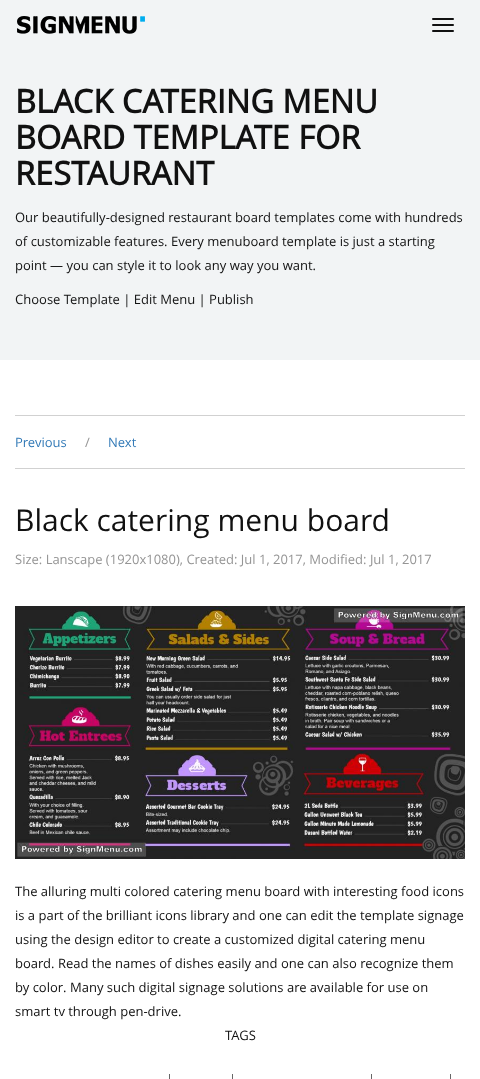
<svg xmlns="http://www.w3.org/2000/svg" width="480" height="1079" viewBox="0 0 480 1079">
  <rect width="100%" height="100%" fill="rgb(255,255,255)"/>
  <rect x="0" y="0" width="480" height="360" fill="rgb(242,244,245)"/>
  <image x="17" y="16" width="128" height="18" href="pic1.png"/>
  <rect x="432" y="18" width="22" height="2" rx="1" fill="rgb(17,17,17)"/>
  <rect x="432" y="24" width="22" height="2" rx="1" fill="rgb(17,17,17)"/>
  <rect x="432" y="30" width="22" height="2" rx="1" fill="rgb(17,17,17)"/>
  <g font-family="Open Sans" font-size="32.5" font-weight="bold" fill="rgb(17,17,17)">
    <text>
      <tspan x="15" y="113">BLACK CATERING MENU</tspan>
      <tspan x="15" y="149">BOARD TEMPLATE FOR</tspan>
      <tspan x="15" y="185">RESTAURANT</tspan>
    </text>
  </g>
  <g font-family="Open Sans" font-size="13" fill="rgb(17,17,17)">
    <text>
      <tspan x="15" y="222">Our beautifully-designed restaurant board templates come with hundreds</tspan>
      <tspan x="15" y="246">of customizable features. Every menuboard template is just a starting</tspan>
      <tspan x="15" y="270">point — you can style it to look any way you want.</tspan>
    </text>
    <text x="15" y="304">Choose Template | Edit Menu | Publish</text>
  </g>
  <rect x="15" y="415" width="450" height="1" fill="rgb(209,209,209)"/>
  <rect x="15" y="468" width="450" height="1" fill="rgb(209,209,209)"/>
  <text x="15" y="447" font-family="Open Sans" font-size="13" fill="rgb(51,122,183)">Previous</text>
  <text x="85" y="447" font-family="Open Sans" font-size="13" fill="rgb(149,149,149)">/</text>
  <text x="108" y="447" font-family="Open Sans" font-size="13" fill="rgb(51,122,183)">Next</text>
  <text x="15" y="531" font-family="Open Sans" font-size="30" fill="rgb(17,17,17)">Black catering menu board</text>
  <text x="15" y="564" font-family="Open Sans" font-size="13" fill="rgb(149,149,149)">Size: Lanscape (1920x1080), Created: Jul 1, 2017, Modified: Jul 1, 2017</text>
  <image x="15" y="606" width="450" height="253" href="pic2.png"/>
  <g font-family="Open Sans" font-size="13" fill="rgb(17,17,17)">
    <text>
      <tspan x="15" y="896">The alluring multi colored catering menu board with interesting food icons</tspan>
      <tspan x="15" y="920">is a part of the brilliant icons library and one can edit the template signage</tspan>
      <tspan x="15" y="944">using the design editor to create a customized digital catering menu</tspan>
      <tspan x="15" y="968">board. Read the names of dishes easily and one can also recognize them</tspan>
      <tspan x="15" y="992">by color. Many such digital signage solutions are available for use on</tspan>
      <tspan x="15" y="1016">smart tv through pen-drive.</tspan>
    </text>
    <text x="225" y="1040">TAGS</text>
  </g>
  <rect x="169" y="1074" width="1" height="5" fill="rgb(102,102,102)"/>
  <rect x="232" y="1074" width="1" height="5" fill="rgb(102,102,102)"/>
  <rect x="371" y="1074" width="1" height="5" fill="rgb(102,102,102)"/>
  <rect x="450" y="1074" width="1" height="5" fill="rgb(102,102,102)"/>
</svg>
